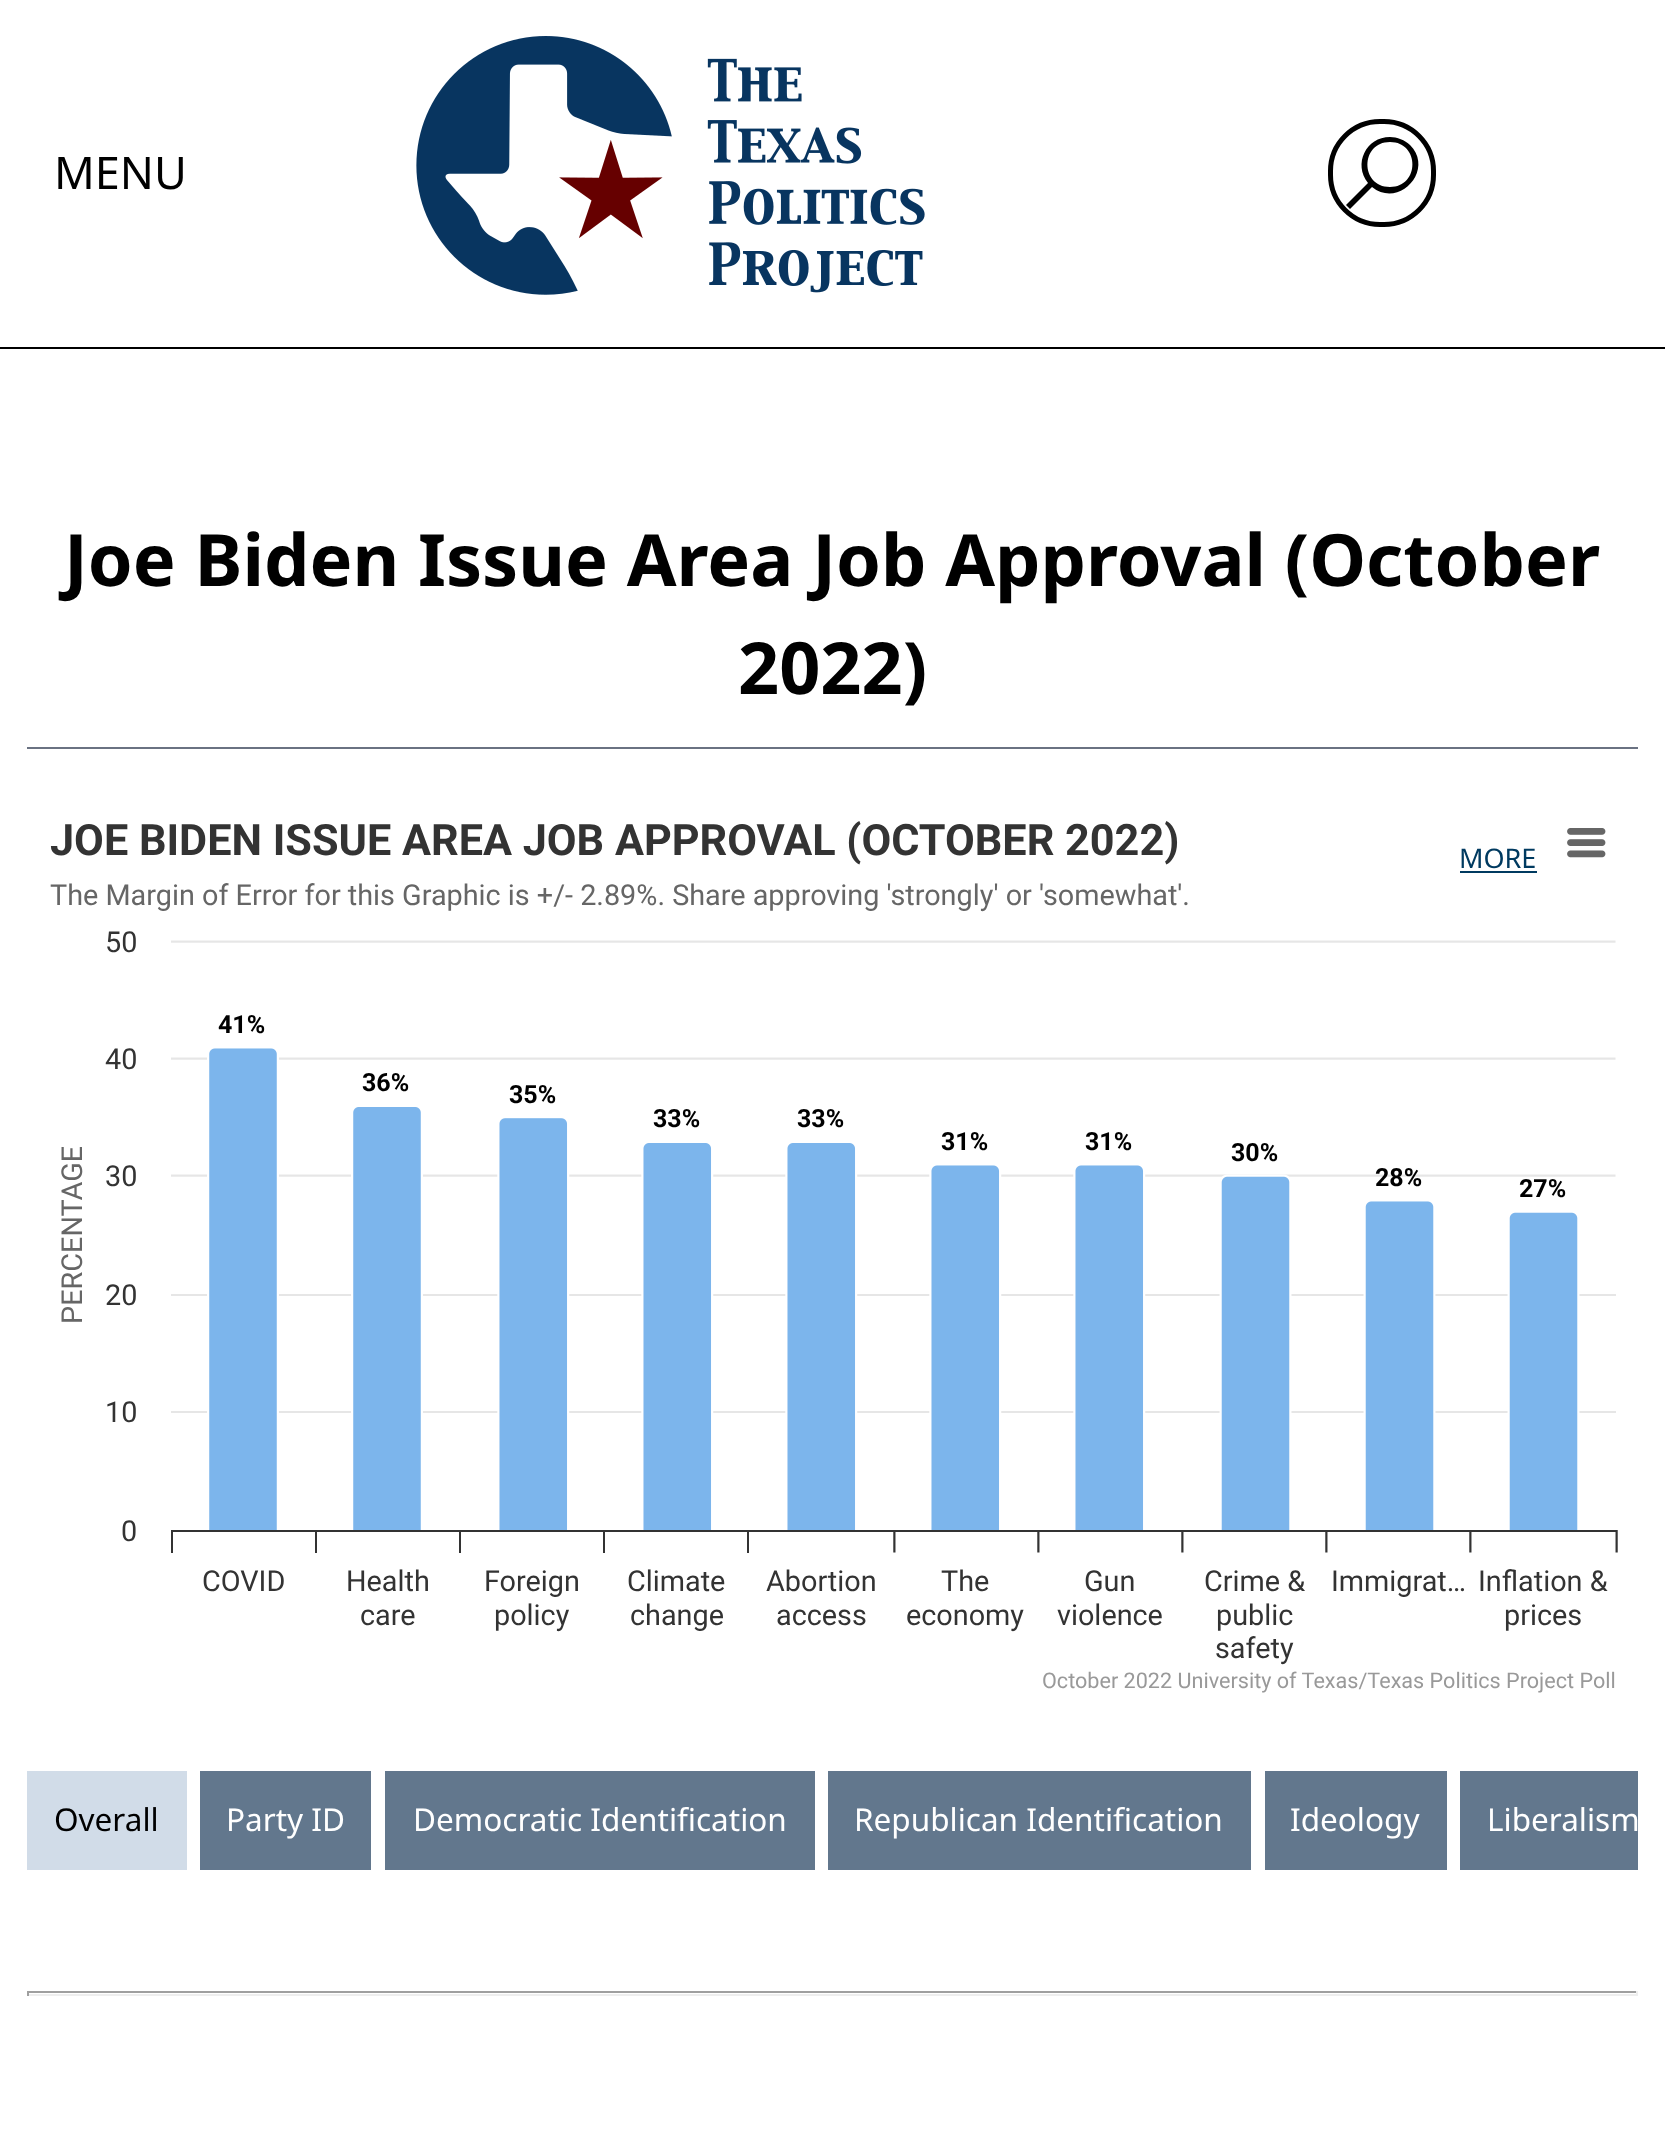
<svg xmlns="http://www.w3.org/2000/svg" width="1665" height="2155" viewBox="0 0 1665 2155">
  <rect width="100%" height="100%" fill="rgb(255,255,255)"/>
  <rect x="0" y="347" width="1665" height="2" fill="rgb(0,0,0)"/>
  <text x="54" y="189" font-family="Noto Sans" font-size="45" fill="rgb(0,0,0)">MENU</text>
  <image x="416" y="36" width="509" height="259" href="pic1.png"/>
  <rect x="1330.5" y="121.5" width="103" height="103" rx="49.5" fill="none" stroke="rgb(0,0,0)" stroke-width="5"/>
  <path d="M1390 137C1366 137 1353 164 1368 183L1346 205L1350 209L1372 187C1399 209 1435 170 1410 145C1405 140 1397 137 1390 137ZM1390 142C1420 142 1420 187 1390 187C1360 187 1360 142 1390 142Z" fill="rgb(0,0,0)"/>
  <rect x="27" y="747" width="1611" height="2" fill="rgb(106,114,130)"/>
  <g font-family="Noto Sans" font-size="72" font-weight="bold" fill="rgb(0,0,0)">
    <text x="64" y="586">Joe Biden Issue Area Job Approval (October</text>
    <text x="738" y="694">2022)</text>
  </g>
  <image x="171" y="828" width="1447" height="725" href="pic2.png"/>
  <text x="50" y="855" font-family="Roboto" font-size="43.2" font-weight="bold" fill="rgb(51,51,51)">JOE BIDEN ISSUE AREA JOB APPROVAL (OCTOBER 2022)</text>
  <text x="50" y="905" font-family="Roboto" font-size="28.8" fill="rgb(102,102,102)">The Margin of Error for this Graphic is +/- 2.89%. Share approving 'strongly' or 'somewhat'.</text>
  <text x="105" y="952" font-family="Roboto" font-size="28.8" fill="rgb(51,51,51)">50</text>
  <text x="218" y="1033" font-family="Roboto" font-size="25" font-weight="bold" fill="rgb(0,0,0)">41%</text>
  <text x="105" y="1069" font-family="Roboto" font-size="28.8" fill="rgb(51,51,51)">40</text>
  <g font-family="Roboto" font-size="25" font-weight="bold" fill="rgb(0,0,0)">
    <text x="362" y="1091">36%</text>
    <text x="509" y="1103">35%</text>
    <text x="653" y="1127">33%</text>
    <text x="797" y="1127">33%</text>
  </g>
  <text x="82" y="1324" transform="rotate(-90 82 1324)" font-family="Roboto" font-size="28.8" fill="rgb(102,102,102)">PERCENTAGE</text>
  <text x="105" y="1186" font-family="Roboto" font-size="28.8" fill="rgb(51,51,51)">30</text>
  <g font-family="Roboto" font-size="25" font-weight="bold" fill="rgb(0,0,0)">
    <text x="941" y="1150">31%</text>
    <text x="1085" y="1150">31%</text>
    <text x="1231" y="1161">30%</text>
    <text x="1375" y="1186">28%</text>
    <text x="1519" y="1197">27%</text>
  </g>
  <g font-family="Roboto" font-size="28.8" fill="rgb(51,51,51)">
    <text x="105" y="1305">20</text>
    <text x="105" y="1422">10</text>
    <text x="121" y="1541">0</text>
    <text x="202" y="1591">COVID</text>
    <text x="346" y="1591">Health</text>
    <text x="484" y="1591">Foreign</text>
    <text x="627" y="1591">Climate</text>
    <text x="766" y="1591">Abortion</text>
    <text x="941" y="1591">The</text>
    <text x="1084" y="1591">Gun</text>
    <text x="1204" y="1591">Crime &amp;</text>
    <text x="1331" y="1591">Immigrat…</text>
    <text x="1478" y="1591">Inflation &amp;</text>
    <text x="360" y="1625">care</text>
    <text x="494" y="1625">policy</text>
    <text x="630" y="1625">change</text>
    <text x="776" y="1625">access</text>
    <text x="906" y="1625">economy</text>
    <text x="1057" y="1625">violence</text>
    <text x="1216" y="1625">public</text>
    <text x="1504" y="1625">prices</text>
    <text x="1215" y="1658">safety</text>
  </g>
  <text x="1042" y="1688" font-family="Roboto" font-size="21.6" fill="rgb(153,153,153)">October 2022 University of Texas/Texas Politics Project Poll</text>
  <text x="1459" y="868" font-family="Noto Sans" font-size="27" fill="rgb(0,58,96)">MORE</text>
  <rect x="1460" y="871" width="77" height="2" fill="rgb(0,58,96)"/>
  <rect x="27" y="1771" width="160" height="99" fill="rgb(209,220,232)"/>
  <text x="54" y="1831" font-family="Noto Sans" font-size="31.5" fill="rgb(0,0,0)">Overall</text>
  <rect x="200" y="1771" width="171" height="99" fill="rgb(98,119,141)"/>
  <text x="226" y="1831" font-family="Noto Sans" font-size="31.5" fill="rgb(255,255,255)">Party ID</text>
  <rect x="385" y="1771" width="430" height="99" fill="rgb(98,119,141)"/>
  <text x="413" y="1831" font-family="Noto Sans" font-size="31.5" fill="rgb(255,255,255)">Democratic Identification</text>
  <rect x="828" y="1771" width="423" height="99" fill="rgb(98,119,141)"/>
  <text x="854" y="1831" font-family="Noto Sans" font-size="31.5" fill="rgb(255,255,255)">Republican Identification</text>
  <rect x="1265" y="1771" width="182" height="99" fill="rgb(98,119,141)"/>
  <text x="1290" y="1831" font-family="Noto Sans" font-size="31.5" fill="rgb(255,255,255)">Ideology</text>
  <rect x="1460" y="1771" width="178" height="99" fill="rgb(98,119,141)"/>
  <text x="1487" y="1831" font-family="Noto Sans" font-size="31.5" fill="rgb(255,255,255)">Liberalism</text>
  <rect x="27" y="1991" width="1611" height="2" fill="rgb(159,159,159)"/>
  <rect x="1636" y="1991" width="2" height="5" fill="rgb(238,238,238)"/>
  <rect x="27" y="1994" width="1611" height="2" fill="rgb(238,238,238)"/>
  <rect x="27" y="1991" width="2" height="5" fill="rgb(159,159,159)"/>
</svg>
